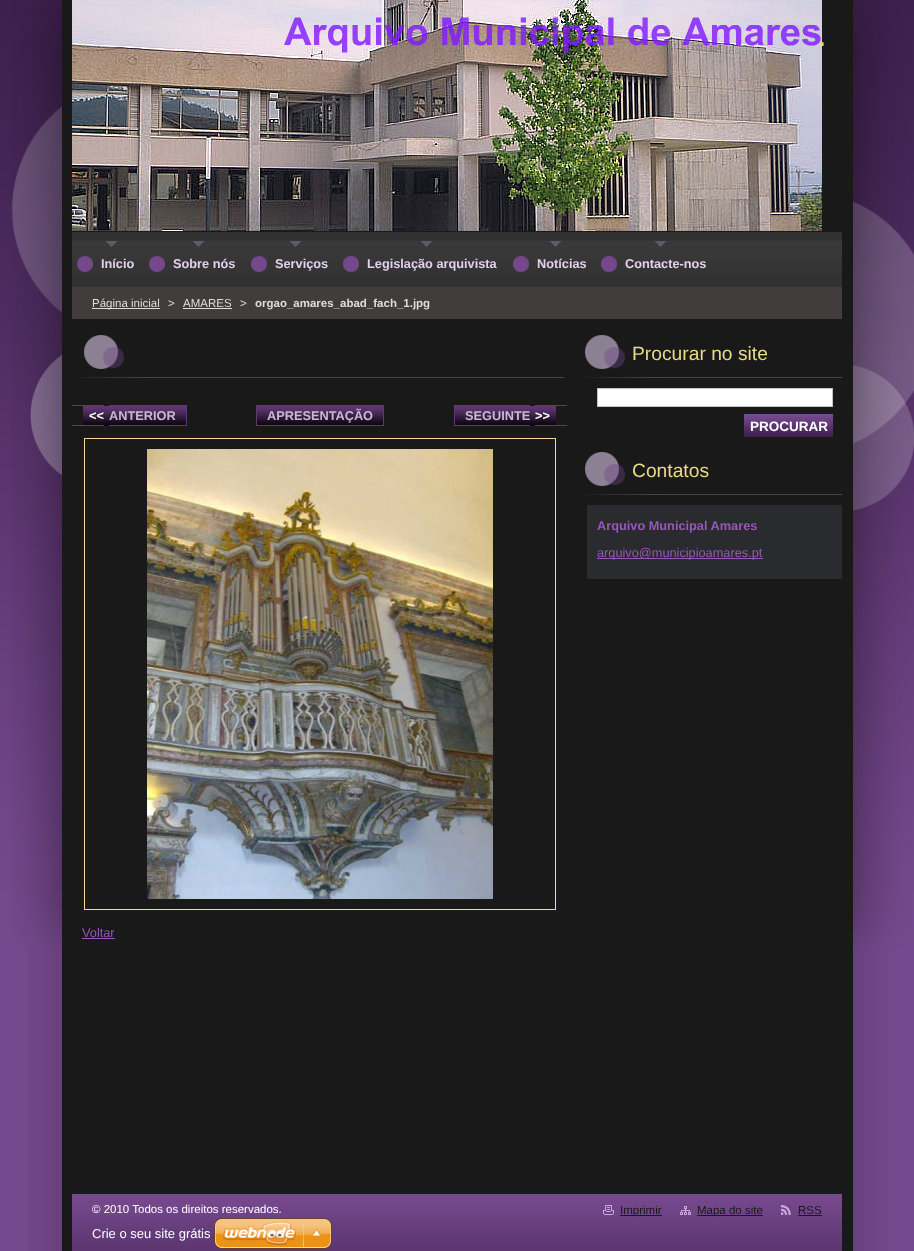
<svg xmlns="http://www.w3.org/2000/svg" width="914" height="1251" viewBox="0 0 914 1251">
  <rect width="100%" height="100%" fill="rgb(118,73,142)"/>
  <image x="27" y="950" width="861" height="301" href="pic1.png"/>
  <image x="0" y="0" width="11" height="950" href="pic2.png"/>
  <image x="11" y="0" width="903" height="950" href="pic3.png"/>
  <rect x="72" y="232" width="770" height="8" fill="rgb(49,49,49)"/>
  <image x="72" y="0" width="750" height="231" href="pic4.png"/>
  <text x="817" y="46" font-family="Liberation Sans" font-size="35" fill="rgb(235,219,132)">.</text>
  <image x="72" y="241" width="770" height="45" href="pic5.png"/>
  <rect x="72" y="240" width="770" height="1" fill="rgb(52,52,52)"/>
  <rect x="72" y="286" width="770" height="1" fill="rgb(50,53,55)"/>
  <image x="77" y="256" width="16" height="16" href="pic6.png"/>
  <image x="106" y="241" width="11" height="6" href="pic7.png"/>
  <text x="101" y="268" font-family="Liberation Sans" font-size="12.75" font-weight="bold" fill="rgb(226,208,236)">Início</text>
  <image x="149" y="256" width="16" height="16" href="pic6.png"/>
  <image x="193" y="241" width="11" height="6" href="pic7.png"/>
  <text x="173" y="268" font-family="Liberation Sans" font-size="12.75" font-weight="bold" fill="rgb(226,208,236)">Sobre nós</text>
  <image x="251" y="256" width="16" height="16" href="pic6.png"/>
  <image x="290" y="241" width="11" height="6" href="pic7.png"/>
  <text x="275" y="268" font-family="Liberation Sans" font-size="12.75" font-weight="bold" fill="rgb(226,208,236)">Serviços</text>
  <image x="343" y="256" width="16" height="16" href="pic6.png"/>
  <image x="421" y="241" width="11" height="6" href="pic7.png"/>
  <text x="367" y="268" font-family="Liberation Sans" font-size="12.75" font-weight="bold" fill="rgb(226,208,236)">Legislação arquivista</text>
  <image x="513" y="256" width="16" height="16" href="pic6.png"/>
  <image x="550" y="241" width="11" height="6" href="pic7.png"/>
  <text x="537" y="268" font-family="Liberation Sans" font-size="12.75" font-weight="bold" fill="rgb(226,208,236)">Notícias</text>
  <image x="601" y="256" width="16" height="16" href="pic6.png"/>
  <image x="655" y="241" width="11" height="6" href="pic7.png"/>
  <text x="625" y="268" font-family="Liberation Sans" font-size="12.75" font-weight="bold" fill="rgb(226,208,236)">Contacte-nos</text>
  <rect x="72" y="287" width="770" height="32" fill="rgb(65,61,61)"/>
  <rect x="92" y="308" width="68" height="1" fill="rgb(221,221,221)"/>
  <g font-family="Liberation Sans" font-size="11.5" fill="rgb(221,221,221)">
    <text x="92" y="307">Página inicial</text>
    <text x="168" y="307">&gt;</text>
    <text x="183" y="307">AMARES</text>
  </g>
  <rect x="183" y="308" width="49" height="1" fill="rgb(221,221,221)"/>
  <text x="240" y="307" font-family="Liberation Sans" font-size="11.5" fill="rgb(221,221,221)">&gt;</text>
  <text x="255" y="307" font-family="Liberation Sans" font-size="11.5" font-weight="bold" fill="rgb(221,221,221)">orgao_amares_abad_fach_1.jpg</text>
  <image x="80" y="335" width="484" height="43" href="pic8.png"/>
  <image x="83" y="406" width="103" height="20" href="pic9.png"/>
  <rect x="72" y="405" width="32" height="1" fill="rgb(95,55,115)"/>
  <rect x="72" y="425" width="32" height="1" fill="rgb(95,55,115)"/>
  <rect x="109" y="405" width="78" height="1" fill="rgb(95,55,115)"/>
  <rect x="186" y="405" width="1" height="21" fill="rgb(95,55,115)"/>
  <rect x="109" y="425" width="78" height="1" fill="rgb(95,55,115)"/>
  <text x="89" y="420" font-family="Liberation Sans" font-size="12.75" font-weight="bold" fill="rgb(255,255,255)">&lt;&lt;</text>
  <text x="109" y="420" font-family="Liberation Sans" font-size="12.75" font-weight="bold" fill="rgb(203,184,212)">ANTERIOR</text>
  <image x="257" y="406" width="126" height="19" href="pic10.png"/>
  <rect x="256.5" y="405.5" width="127" height="20" fill="none" stroke="rgb(95,55,115)"/>
  <text x="267" y="420" font-family="Liberation Sans" font-size="12.75" font-weight="bold" fill="rgb(203,184,212)">APRESENTAÇÃO</text>
  <image x="455" y="406" width="101" height="20" href="pic11.png"/>
  <rect x="454" y="405" width="76" height="1" fill="rgb(95,55,115)"/>
  <rect x="454" y="425" width="76" height="1" fill="rgb(95,55,115)"/>
  <rect x="454" y="405" width="1" height="21" fill="rgb(95,55,115)"/>
  <rect x="535" y="405" width="32" height="1" fill="rgb(95,55,115)"/>
  <rect x="535" y="425" width="32" height="1" fill="rgb(95,55,115)"/>
  <text x="465" y="420" font-family="Liberation Sans" font-size="12.75" font-weight="bold" fill="rgb(203,184,212)">SEGUINTE</text>
  <text x="535" y="420" font-family="Liberation Sans" font-size="12.75" font-weight="bold" fill="rgb(255,255,255)">&gt;&gt;</text>
  <rect x="84.5" y="438.5" width="471" height="471" fill="none" stroke="rgb(249,213,159)"/>
  <image x="147" y="449" width="346" height="450" href="pic12.png"/>
  <text x="82" y="937" font-family="Liberation Sans" font-size="12.75" fill="rgb(152,87,187)">Voltar</text>
  <rect x="82" y="938" width="33" height="1" fill="rgb(152,87,187)"/>
  <image x="584" y="335" width="258" height="43" href="pic13.png"/>
  <text x="632" y="360" font-family="Liberation Sans" font-size="19.25" fill="rgb(235,219,132)">Procurar no site</text>
  <rect x="597.5" y="388.5" width="235" height="18" fill="rgb(255,255,255)" stroke="rgb(193,193,193)"/>
  <image x="744" y="414" width="89" height="23" href="pic14.png"/>
  <text x="750" y="431" font-family="Liberation Sans" font-size="13.5" font-weight="bold" fill="rgb(255,255,255)">PROCURAR</text>
  <image x="584" y="452" width="258" height="43" href="pic13.png"/>
  <text x="632" y="477" font-family="Liberation Sans" font-size="19.25" fill="rgb(235,219,132)">Contatos</text>
  <rect x="587" y="505" width="255" height="74" fill="rgb(41,43,46)"/>
  <text x="597" y="530" font-family="Liberation Sans" font-size="12.75" font-weight="bold" fill="rgb(152,87,187)">Arquivo Municipal Amares</text>
  <rect x="597" y="558" width="166" height="1" fill="rgb(152,87,187)"/>
  <text x="597" y="557" font-family="Liberation Sans" font-size="12.75" fill="rgb(152,87,187)">arquivo@municipioamares.pt</text>
  <image x="72" y="1194" width="770" height="57" href="pic15.png"/>
  <text x="92" y="1213" font-family="Liberation Sans" font-size="11.5" fill="rgb(255,255,255)">© 2010 Todos os direitos reservados.</text>
  <image x="603" y="1205" width="11" height="10" href="pic16.png"/>
  <rect x="620" y="1215" width="42" height="1" fill="rgb(25,25,25)"/>
  <text x="620" y="1214" font-family="Liberation Sans" font-size="11.5" fill="rgb(25,25,25)">Imprimir</text>
  <image x="680" y="1206" width="11" height="9" href="pic17.png"/>
  <rect x="697" y="1215" width="66" height="1" fill="rgb(25,25,25)"/>
  <text x="697" y="1214" font-family="Liberation Sans" font-size="11.5" fill="rgb(25,25,25)">Mapa do site</text>
  <image x="781" y="1205" width="10" height="10" href="pic18.png"/>
  <text x="798" y="1214" font-family="Liberation Sans" font-size="11.5" fill="rgb(25,25,25)">RSS</text>
  <rect x="798" y="1215" width="24" height="1" fill="rgb(25,25,25)"/>
  <text x="92" y="1238" font-family="Liberation Sans" font-size="13" fill="rgb(255,255,255)">Crie o seu site grátis</text>
  <image x="214" y="1218" width="118" height="31" href="pic19.png"/>
</svg>
